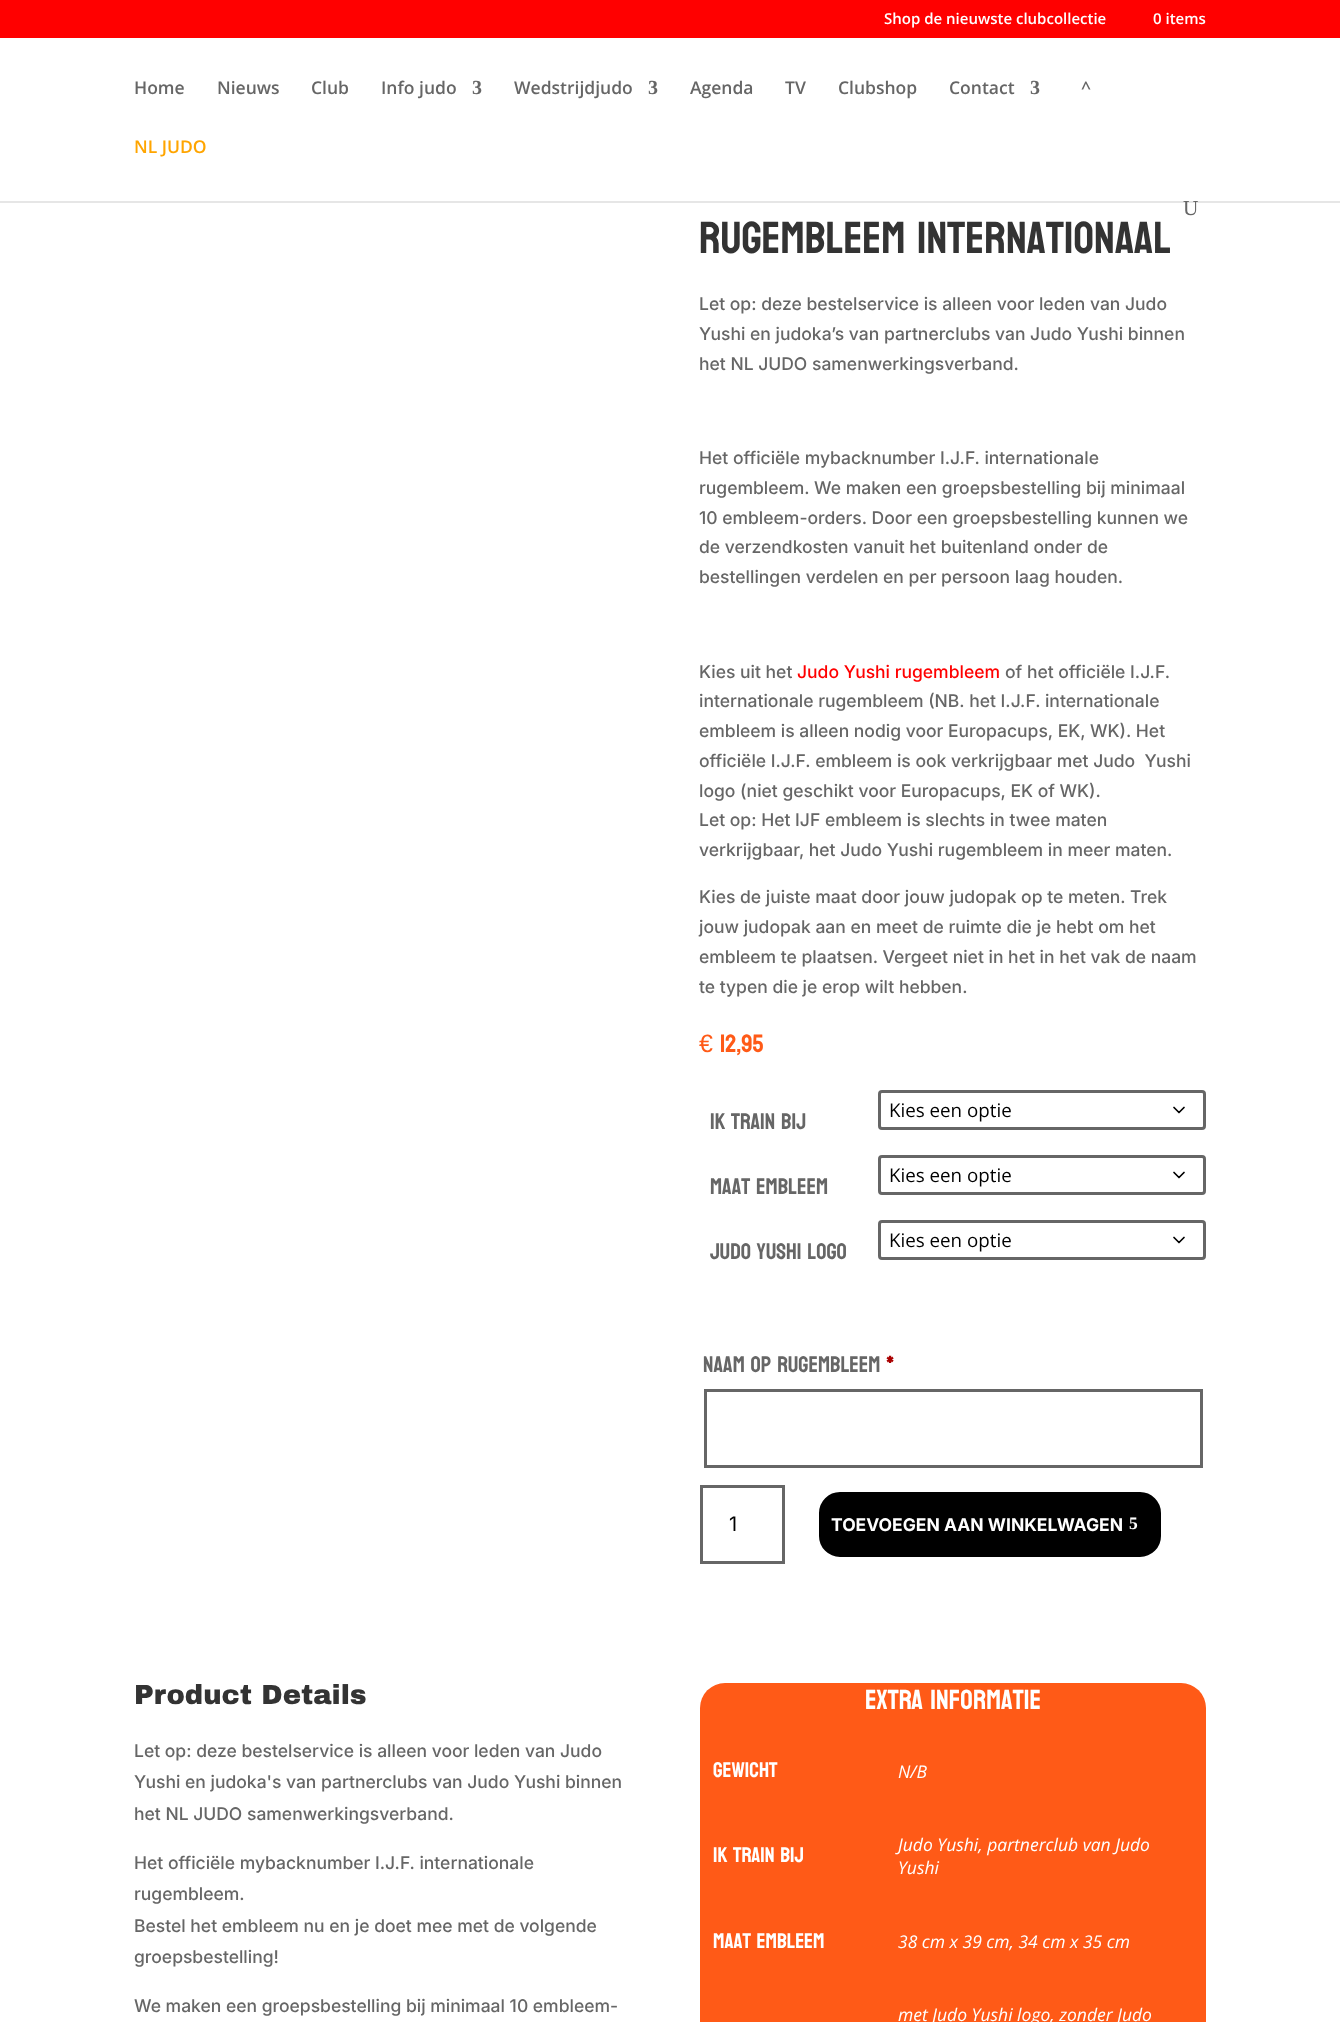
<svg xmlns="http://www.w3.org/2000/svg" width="1340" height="2022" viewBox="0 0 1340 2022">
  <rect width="100%" height="100%" fill="rgb(255,255,255)"/>
  <rect x="0" y="0" width="1340" height="38" fill="rgb(255,0,0)"/>
  <g font-family="Open Sans" font-size="15" font-weight="600" fill="rgb(255,255,255)">
    <text x="884" y="24">Shop de nieuwste clubcollectie</text>
    <text x="1153" y="24">0 items</text>
  </g>
  <rect x="0" y="201" width="1340" height="2" fill="rgb(230,230,230)"/>
  <g font-family="Open Sans" font-size="17.5" font-weight="600" fill="rgb(102,102,102)">
    <text x="134" y="94">Home</text>
    <text x="217" y="94">Nieuws</text>
    <text x="311" y="94">Club</text>
    <text x="381" y="94">Info judo</text>
  </g>
  <text x="472" y="94" font-family="Liberation Serif" font-size="20" font-weight="bold" fill="rgb(102,102,102)">3</text>
  <text x="514" y="94" font-family="Open Sans" font-size="17.5" font-weight="600" fill="rgb(102,102,102)">Wedstrijdjudo</text>
  <text x="648" y="94" font-family="Liberation Serif" font-size="20" font-weight="bold" fill="rgb(102,102,102)">3</text>
  <g font-family="Open Sans" font-size="17.5" font-weight="600" fill="rgb(102,102,102)">
    <text x="690" y="94">Agenda</text>
    <text x="785" y="94">TV</text>
    <text x="838" y="94">Clubshop</text>
    <text x="949" y="94">Contact</text>
  </g>
  <text x="1030" y="94" font-family="Liberation Serif" font-size="20" font-weight="bold" fill="rgb(102,102,102)">3</text>
  <text x="1081" y="94" font-family="Open Sans" font-size="17.5" font-weight="600" fill="rgb(102,102,102)">^</text>
  <text x="134" y="153" font-family="Open Sans" font-size="17.5" font-weight="600" fill="rgb(255,165,0)">NL JUDO</text>
  <text x="1183" y="215" font-family="Liberation Serif" font-size="21.25" fill="rgb(102,102,102)">U</text>
  <text x="699" y="253" font-family="Bayon" font-size="45" fill="rgb(51,51,51)">Rugembleem internationaal</text>
  <g font-family="Inter" font-size="17.5" font-weight="500" fill="rgb(102,102,102)">
    <text>
      <tspan x="699" y="310">Let op: deze bestelservice is alleen voor leden van Judo</tspan>
      <tspan x="699" y="340">Yushi en judoka’s van partnerclubs van Judo Yushi binnen</tspan>
      <tspan x="699" y="370">het NL JUDO samenwerkingsverband.</tspan>
    </text>
    <text>
      <tspan x="699" y="464">Het officiële mybacknumber I.J.F. internationale</tspan>
      <tspan x="699" y="494">rugembleem. We maken een groepsbestelling bij minimaal</tspan>
      <tspan x="699" y="524">10 embleem-orders. Door een groepsbestelling kunnen we</tspan>
      <tspan x="699" y="553">de verzendkosten vanuit het buitenland onder de</tspan>
      <tspan x="699" y="583">bestellingen verdelen en per persoon laag houden.</tspan>
    </text>
    <text x="699" y="678">Kies uit het</text>
  </g>
  <text x="797" y="678" font-family="Inter" font-size="17.5" font-weight="500" fill="rgb(255,0,0)">Judo Yushi rugembleem</text>
  <g font-family="Inter" font-size="17.5" font-weight="500" fill="rgb(102,102,102)">
    <text x="1005" y="678">of het officiële I.J.F.</text>
    <text xml:space="preserve"><tspan x="699" y="707">internationale rugembleem (NB. het I.J.F. internationale</tspan><tspan x="699" y="737">embleem is alleen nodig voor Europacups, EK, WK). Het</tspan><tspan x="699" y="767">officiële I.J.F. embleem is ook verkrijgbaar met Judo  Yushi</tspan><tspan x="699" y="797">logo (niet geschikt voor Europacups, EK of WK).</tspan><tspan x="699" y="826">Let op: Het IJF embleem is slechts in twee maten</tspan><tspan x="699" y="856">verkrijgbaar, het Judo Yushi rugembleem in meer maten.</tspan></text>
    <text>
      <tspan x="699" y="903">Kies de juiste maat door jouw judopak op te meten. Trek</tspan>
      <tspan x="699" y="933">jouw judopak aan en meet de ruimte die je hebt om het</tspan>
      <tspan x="699" y="963">embleem te plaatsen. Vergeet niet in het in het vak de naam</tspan>
      <tspan x="699" y="993">te typen die je erop wilt hebben.</tspan>
    </text>
  </g>
  <text x="699" y="1052" font-family="Liberation Sans" font-size="25" fill="rgb(255,90,23)">€</text>
  <text x="720" y="1052" font-family="Bayon" font-size="25" fill="rgb(255,90,23)">12,95</text>
  <text x="710" y="1129" font-family="Bayon" font-size="22.5" fill="rgb(102,102,102)">Ik train bij</text>
  <path d="M1174 1107.5L1179 1112.5L1184 1107.5" fill="none" stroke="rgb(0,0,0)" stroke-width="1.7" stroke-linecap="round" stroke-linejoin="round"/>
  <rect x="879.5" y="1091.5" width="325" height="37" rx="2.5" fill="none" stroke="rgb(102,102,102)" stroke-width="3"/>
  <text x="889" y="1117" font-family="Open Sans" font-size="18.75" fill="rgb(0,0,0)">Kies een optie</text>
  <text x="710" y="1194" font-family="Bayon" font-size="22.5" fill="rgb(102,102,102)">Maat embleem</text>
  <path d="M1174 1172.5L1179 1177.5L1184 1172.5" fill="none" stroke="rgb(0,0,0)" stroke-width="1.7" stroke-linecap="round" stroke-linejoin="round"/>
  <rect x="879.5" y="1156.5" width="325" height="37" rx="2.5" fill="none" stroke="rgb(102,102,102)" stroke-width="3"/>
  <text x="889" y="1182" font-family="Open Sans" font-size="18.75" fill="rgb(0,0,0)">Kies een optie</text>
  <text x="710" y="1259" font-family="Bayon" font-size="22.5" fill="rgb(102,102,102)">Judo Yushi logo</text>
  <path d="M1174 1237.5L1179 1242.5L1184 1237.5" fill="none" stroke="rgb(0,0,0)" stroke-width="1.7" stroke-linecap="round" stroke-linejoin="round"/>
  <rect x="879.5" y="1221.5" width="325" height="37" rx="2.5" fill="none" stroke="rgb(102,102,102)" stroke-width="3"/>
  <text x="889" y="1247" font-family="Open Sans" font-size="18.75" fill="rgb(0,0,0)">Kies een optie</text>
  <text x="703" y="1372" font-family="Bayon" font-size="22.5" fill="rgb(102,102,102)">naam op rugembleem</text>
  <text x="886" y="1372" font-family="Bayon" font-size="22.5" font-weight="bold" fill="rgb(170,0,0)">*</text>
  <rect x="705.5" y="1390.5" width="496" height="76" fill="none" stroke="rgb(102,102,102)" stroke-width="3"/>
  <rect x="701.5" y="1486.5" width="82" height="76" fill="none" stroke="rgb(102,102,102)" stroke-width="3"/>
  <text x="729" y="1531" font-family="Inter" font-size="20" fill="rgb(0,0,0)">1</text>
  <rect x="817" y="1490" width="346" height="69" rx="23" fill="rgb(0,0,0)" stroke="rgb(255,255,255)" stroke-width="4"/>
  <text x="831" y="1531" font-family="Inter" font-size="17.5" font-weight="bold" fill="rgb(255,255,255)">TOEVOEGEN AAN WINKELWAGEN</text>
  <text x="1129" y="1529" font-family="Liberation Serif" font-size="17.5" font-weight="bold" fill="rgb(255,255,255)">5</text>
  <text x="134" y="1704" font-family="Archivo Black" font-size="27.5" font-weight="900" fill="rgb(51,51,51)">Product Details</text>
  <g font-family="Inter" font-size="17.5" font-weight="500" fill="rgb(102,102,102)">
    <text>
      <tspan x="134" y="1757">Let op: deze bestelservice is alleen voor leden van Judo</tspan>
      <tspan x="134" y="1788">Yushi en judoka's van partnerclubs van Judo Yushi binnen</tspan>
      <tspan x="134" y="1820">het NL JUDO samenwerkingsverband.</tspan>
    </text>
    <text>
      <tspan x="134" y="1869">Het officiële mybacknumber I.J.F. internationale</tspan>
      <tspan x="134" y="1900">rugembleem.</tspan>
      <tspan x="134" y="1932">Bestel het embleem nu en je doet mee met de volgende</tspan>
      <tspan x="134" y="1963">groepsbestelling!</tspan>
    </text>
    <text x="134" y="2012">We maken een groepsbestelling bij minimaal 10 embleem-</text>
  </g>
  <rect x="700" y="1683" width="506" height="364" rx="25" fill="rgb(255,90,23)"/>
  <text x="865" y="1709" font-family="Bayon" font-size="27.5" fill="rgb(255,255,255)">Extra informatie</text>
  <text x="713" y="1777" font-family="Bayon" font-size="21.25" fill="rgb(255,255,255)">Gewicht</text>
  <text x="898" y="1778" font-family="Open Sans" font-size="17.5" font-style="italic" fill="rgb(255,255,255)">N/B</text>
  <text x="713" y="1862" font-family="Bayon" font-size="21.25" fill="rgb(255,255,255)">Ik train bij</text>
  <g font-family="Open Sans" font-size="17.5" font-style="italic" fill="rgb(255,255,255)">
    <text>
      <tspan x="898" y="1851">Judo Yushi, partnerclub van Judo</tspan>
      <tspan x="898" y="1874">Yushi</tspan>
    </text>
  </g>
  <text x="713" y="1948" font-family="Bayon" font-size="21.25" fill="rgb(255,255,255)">Maat embleem</text>
  <g font-family="Open Sans" font-size="17.5" font-style="italic" fill="rgb(255,255,255)">
    <text x="898" y="1948">38 cm x 39 cm, 34 cm x 35 cm</text>
    <text x="898" y="2021">met Judo Yushi logo, zonder Judo</text>
  </g>
</svg>
